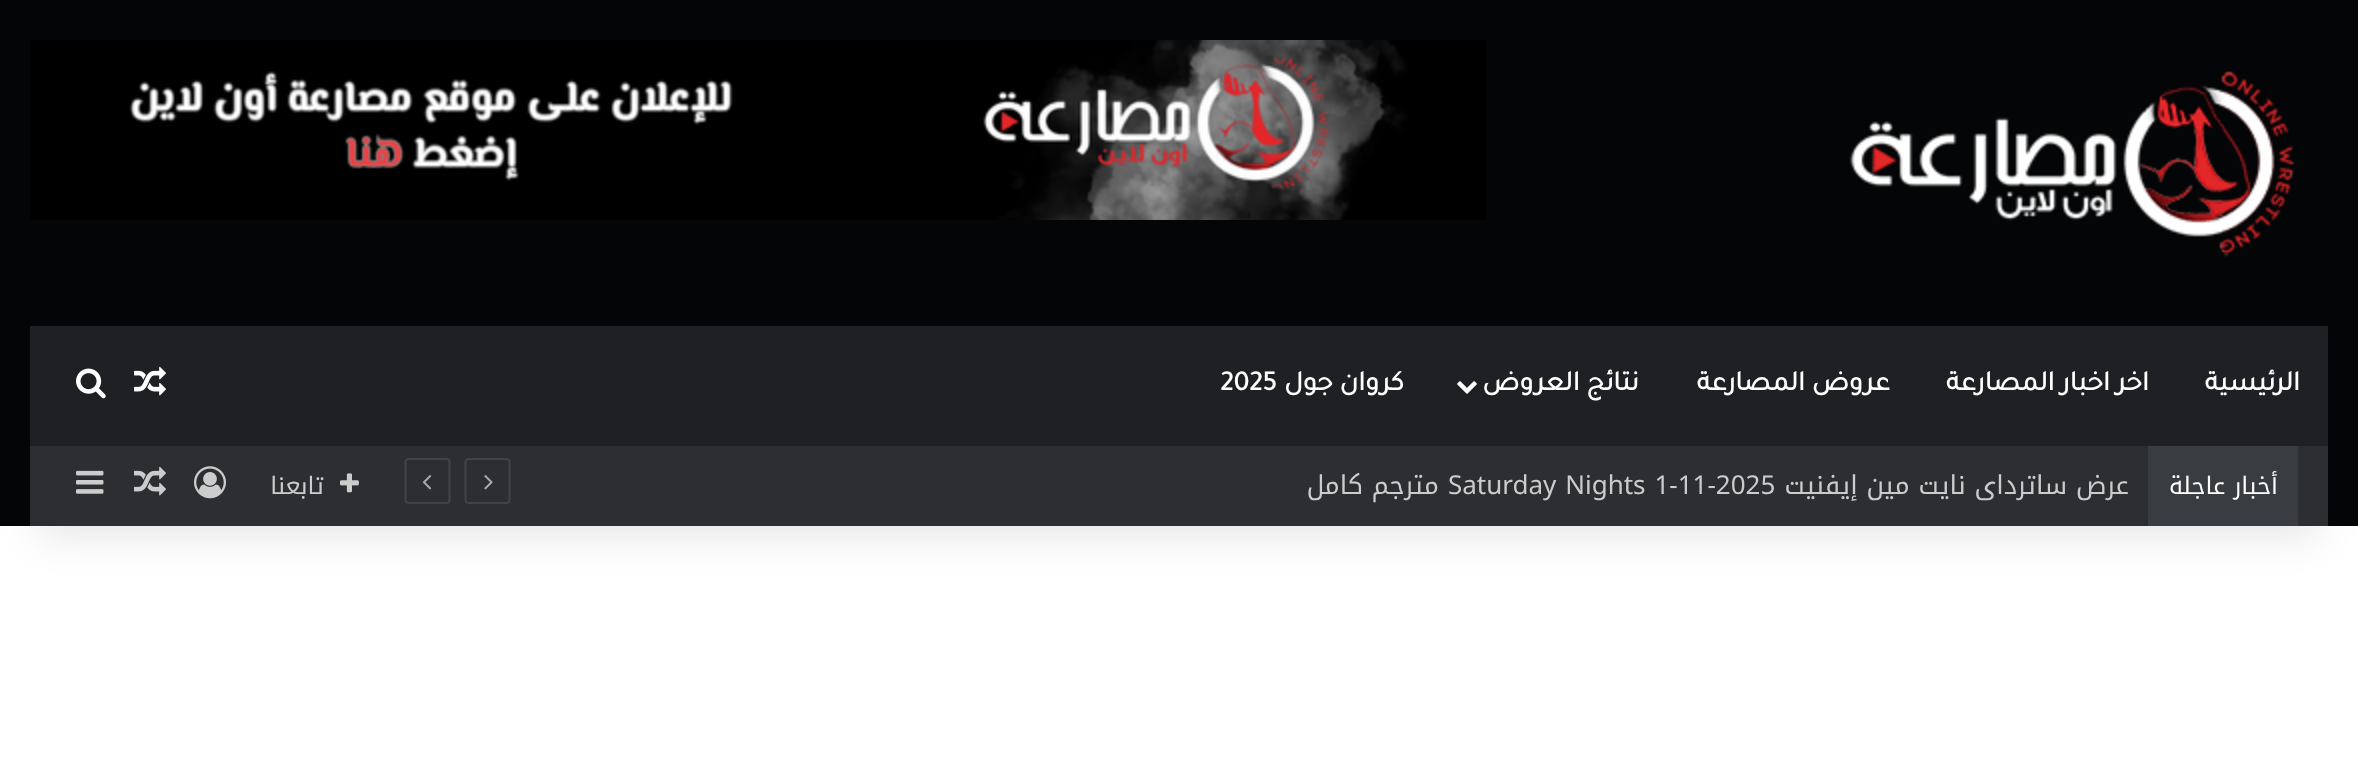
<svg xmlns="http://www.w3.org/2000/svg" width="2358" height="759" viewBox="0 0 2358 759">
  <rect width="100%" height="100%" fill="rgb(255,255,255)"/>
  <rect x="40" y="90" width="2278" height="446" fill="rgba(0,0,0,0.1)" filter="blur(20px)"/>
  <rect x="0" y="0" width="2358" height="526" fill="rgb(4,5,6)"/>
  <image x="1849" y="71" width="446" height="186" href="pic1.png"/>
  <image x="30" y="40" width="1456" height="180" href="pic2.png"/>
  <rect x="30" y="326" width="2298" height="120" fill="rgb(31,32,36)"/>
  <g font-family="Tajawal" font-size="28" font-weight="bold" direction="rtl" fill="rgb(255,255,255)">
    <text x="2300" y="390">الرئيسية</text>
    <text x="2149" y="390">اخر اخبار المصارعة</text>
    <text x="1890" y="390">عروض المصارعة</text>
    <text x="1639" y="390">نتائج العروض</text>
  </g>
  <image x="1457" y="381" width="20" height="13" href="pic3.png"/>
  <text x="1404" y="390" font-family="Tajawal" font-size="28" font-weight="bold" direction="rtl" fill="rgb(255,255,255)">كروان جول</text>
  <text x="1220" y="390" font-family="Tajawal" font-size="28" font-weight="bold" fill="rgb(255,255,255)">2025</text>
  <image x="134" y="366" width="32" height="30" href="pic4.png"/>
  <image x="76" y="368" width="30" height="31" href="pic5.png"/>
  <rect x="30" y="446" width="2298" height="80" fill="rgb(44,46,50)"/>
  <rect x="2148" y="446" width="150" height="80" fill="rgb(57,60,65)"/>
  <text x="2278" y="494" font-family="Noto Kufi Arabic" font-size="24" direction="rtl" fill="rgb(255,255,255)">أخبار عاجلة</text>
  <text x="2129" y="494" font-family="Noto Kufi Arabic" font-size="26" direction="rtl" fill="rgb(204,204,204)">عرض ساترداى نايت مين إيفنيت</text>
  <text x="1448" y="494" font-family="Noto Kufi Arabic" font-size="26" fill="rgb(204,204,204)">Saturday Nights 1-11-2025</text>
  <text x="1439" y="494" font-family="Noto Kufi Arabic" font-size="26" direction="rtl" fill="rgb(204,204,204)">مترجم كامل</text>
  <path d="M506.5 503H468.5C467 503 465.5 501.5 465.5 500V462C465.5 460.5 467 459 468.5 459H506.5C508.5 459 509.5 460.5 509.5 462V500C509.5 501.5 508.5 503 506.5 503Z" fill="none" stroke="rgb(65,67,71)" stroke-width="2"/>
  <image x="484" y="475" width="9" height="15" href="pic6.png"/>
  <path d="M446.5 503H408.5C407 503 405.5 501.5 405.5 500V462C405.5 460.5 407 459 408.5 459H446.5C448.5 459 449.5 460.5 449.5 462V500C449.5 501.5 448.5 503 446.5 503Z" fill="none" stroke="rgb(65,67,71)" stroke-width="2"/>
  <image x="422" y="475" width="10" height="15" href="pic7.png"/>
  <image x="340" y="473" width="19" height="20" href="pic8.png"/>
  <text x="324" y="494" font-family="Noto Kufi Arabic" font-size="24" direction="rtl" fill="rgb(204,204,204)">تابعنا</text>
  <image x="194" y="466" width="32" height="33" href="pic9.png"/>
  <image x="134" y="466" width="32" height="30" href="pic10.png"/>
  <image x="76" y="470" width="28" height="24" href="pic11.png"/>
</svg>
